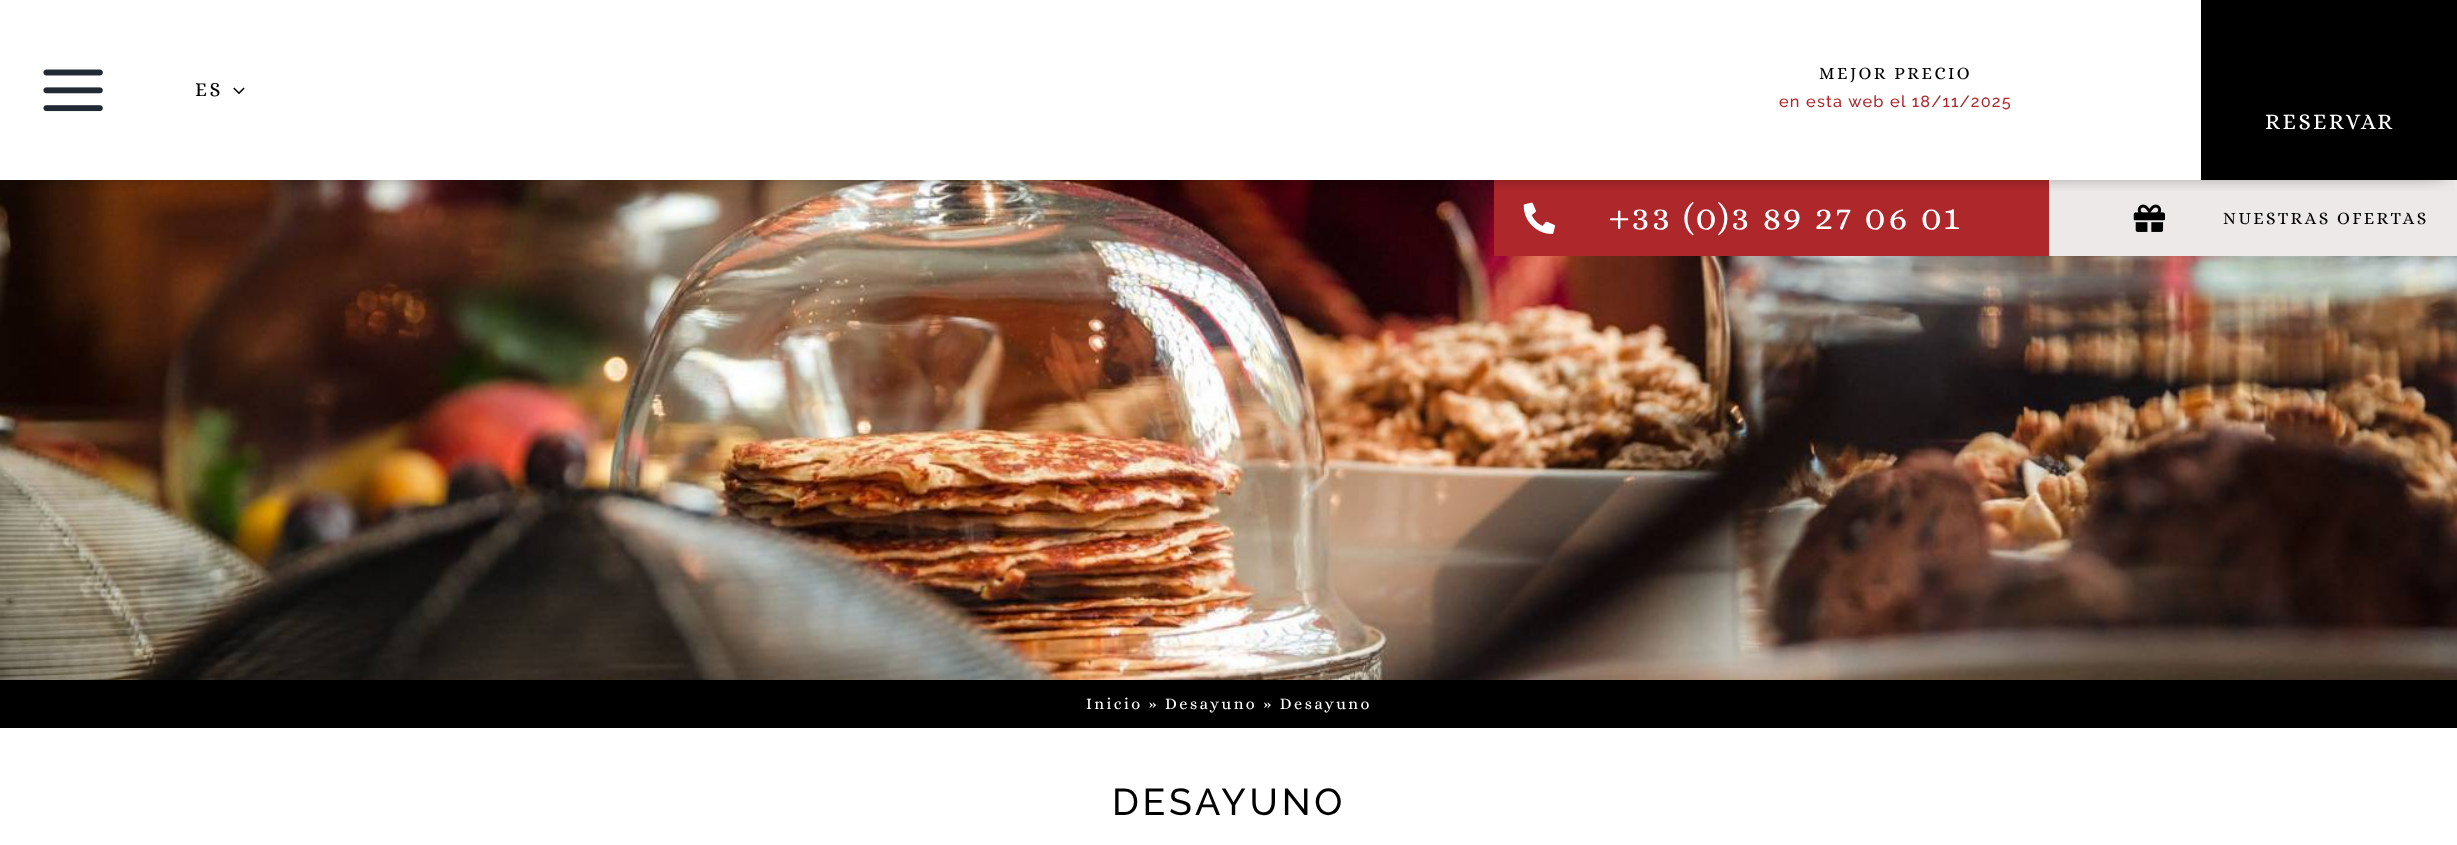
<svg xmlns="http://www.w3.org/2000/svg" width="2457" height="845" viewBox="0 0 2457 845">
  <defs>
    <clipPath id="clip1"><rect x="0" y="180" width="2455" height="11"/></clipPath>
  </defs>
  <rect width="100%" height="100%" fill="rgb(255,255,255)"/>
  <image x="0" y="180" width="2457" height="500" href="pic5.png"/>
  <rect x="1494" y="180" width="555" height="76" fill="rgb(173,39,43)"/>
  <rect x="2049" y="180" width="408" height="76" fill="rgb(237,233,233)"/>
  <g clip-path="url(#clip1)">
    <rect x="11" y="14" width="2433" height="155" fill="rgb(0,0,0)" filter="blur(10.5px)"/>
  </g>
  <image x="43" y="69" width="60" height="43" href="pic1.png"/>
  <text x="195" y="96" font-family="Alice" font-size="20" letter-spacing="2.5" fill="rgb(0,0,0)">ES</text>
  <image x="233" y="87" width="12" height="8" href="pic2.png"/>
  <text x="1819" y="79" font-family="Alice" font-size="17.5" letter-spacing="2.5" fill="rgb(0,0,0)">MEJOR PRECIO</text>
  <text x="1779" y="107" font-family="Raleway" font-size="16.25" font-weight="500" letter-spacing="1.25" fill="rgb(173,39,43)">en esta web el 18/11/2025</text>
  <rect x="2201" y="0" width="256" height="180" fill="rgb(0,0,0)"/>
  <text x="2265" y="129" font-family="Alice" font-size="22.5" letter-spacing="2.5" fill="rgb(255,255,255)">RESERVAR</text>
  <image x="1523" y="202" width="32" height="32" href="pic3.png"/>
  <text x="1609" y="229" font-family="Alice" font-size="36.9" letter-spacing="2.5" fill="rgb(255,255,255)">+33 (0)3 89 27 06 01</text>
  <image x="2133" y="204" width="32" height="28" href="pic4.png"/>
  <text x="2223" y="224" font-family="Alice" font-size="17.5" letter-spacing="2.5" fill="rgb(0,0,0)">NUESTRAS OFERTAS</text>
  <rect x="0" y="680" width="2457" height="48" fill="rgb(0,0,0)"/>
  <text x="1086" y="709" font-family="Alice" font-size="16.25" letter-spacing="2.5" fill="rgb(255,255,255)">Inicio » Desayuno » Desayuno</text>
  <text x="1112" y="815" font-family="Raleway" font-size="37.5" font-weight="500" letter-spacing="3.75" fill="rgb(0,0,0)">DESAYUNO</text>
</svg>
